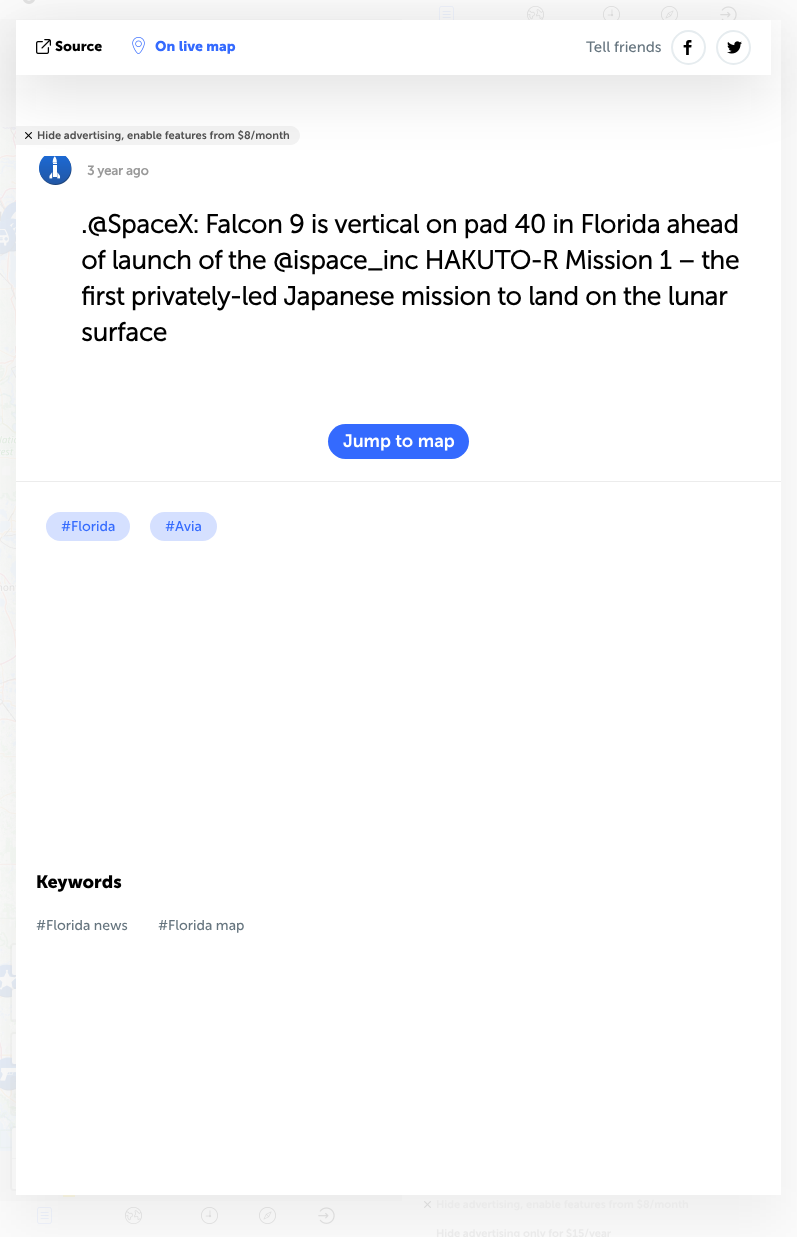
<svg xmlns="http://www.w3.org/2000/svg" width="797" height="1237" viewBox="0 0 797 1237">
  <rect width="100%" height="100%" fill="rgb(251,251,251)"/>
  <image x="23" y="0" width="12" height="4" href="pic7.png"/>
  <rect x="0" y="19" width="402" height="1182" fill="rgb(248,248,248)"/>
  <image x="0" y="127" width="16" height="256" href="pic8.png"/>
  <image x="0" y="383" width="16" height="256" href="pic9.png"/>
  <image x="0" y="639" width="16" height="256" href="pic10.png"/>
  <image x="0" y="895" width="16" height="256" href="pic11.png"/>
  <image x="2" y="201" width="14" height="14" href="pic12.png"/>
  <image x="0" y="206" width="16" height="16" href="pic13.png"/>
  <image x="1" y="218" width="15" height="34" href="pic14.png"/>
  <image x="0" y="221" width="16" height="34" href="pic15.png"/>
  <image x="0" y="964" width="16" height="34" href="pic16.png"/>
  <image x="0" y="1057" width="16" height="34" href="pic17.png"/>
  <rect x="11" y="944" width="32" height="32" rx="3" fill="none" stroke="rgba(226,226,226,0.2)" stroke-width="2"/>
  <rect x="12" y="945" width="30" height="30" rx="2" fill="rgb(251,251,251)"/>
  <rect x="11" y="988" width="32" height="33" rx="3" fill="none" stroke="rgba(226,226,226,0.2)" stroke-width="2"/>
  <path d="M14 989H40C41 989 42 990 42 991V1020H12V991C12 990 13 989 14 989Z" fill="rgb(251,251,251)"/>
  <rect x="12" y="1019" width="4" height="1" fill="rgb(246,246,246)"/>
  <rect x="11" y="1033" width="32" height="32" rx="3" fill="none" stroke="rgba(226,226,226,0.2)" stroke-width="2"/>
  <rect x="12" y="1034" width="30" height="30" rx="2" fill="rgb(251,251,251)"/>
  <rect x="11" y="1077" width="40" height="38" rx="3" fill="none" stroke="rgba(226,226,226,0.2)" stroke-width="2"/>
  <rect x="13" y="1079" width="36" height="34" rx="3" fill="none" stroke="rgba(226,226,226,0.2)" stroke-width="2"/>
  <rect x="15" y="1080" width="1" height="2" fill="rgba(226,226,226,0.2)"/>
  <rect x="14" y="1081" width="2" height="30" fill="rgba(226,226,226,0.2)"/>
  <rect x="11" y="1127" width="32" height="63" rx="3" fill="none" stroke="rgba(226,226,226,0.2)" stroke-width="2"/>
  <path d="M14 1128H40C41 1128 42 1129 42 1130V1159H12V1130C12 1129 13 1128 14 1128Z" fill="rgb(251,251,251)"/>
  <rect x="12" y="1158" width="4" height="1" fill="rgb(246,246,246)"/>
  <path d="M12 1159H42V1187C42 1188 41 1189 40 1189H14C13 1189 12 1188 12 1187Z" fill="rgb(251,251,251)"/>
  <rect x="63" y="1195" width="12" height="1" fill="rgb(251,247,226)"/>
  <rect x="63" y="1196" width="12" height="1" fill="rgb(248,245,226)"/>
  <image x="37" y="1207" width="15" height="17" href="pic18.png"/>
  <image x="125" y="1207" width="17" height="17" href="pic19.png"/>
  <image x="201" y="1207" width="17" height="17" href="pic20.png"/>
  <image x="259" y="1207" width="17" height="17" href="pic21.png"/>
  <image x="318" y="1207" width="17" height="17" href="pic22.png"/>
  <image x="439" y="6" width="15" height="14" href="pic23.png"/>
  <image x="527" y="6" width="17" height="14" href="pic24.png"/>
  <image x="603" y="6" width="17" height="14" href="pic25.png"/>
  <image x="661" y="6" width="17" height="14" href="pic26.png"/>
  <image x="720" y="6" width="17" height="14" href="pic27.png"/>
  <image x="424" y="1201" width="7" height="7" href="pic28.png"/>
  <rect x="16" y="45" width="765" height="1175" fill="rgba(0,0,0,0.05)" filter="blur(25px)"/>
  <rect x="16" y="20" width="765" height="1175" fill="rgb(255,255,255)"/>
  <path d="M16 126H290.5C295.5 126 300 130.5 300 135.5C300 140.5 295.5 145 290.5 145H16Z" fill="rgb(243,243,243)"/>
  <image x="25" y="132" width="7" height="7" href="pic5.png"/>
  <image x="39" y="156" width="33" height="29" href="pic6.png"/>
  <rect x="16" y="35" width="755" height="55" fill="rgba(16,15,15,0.14)" filter="blur(30px)"/>
  <rect x="16" y="20" width="755" height="55" fill="rgb(255,255,255)"/>
  <image x="36" y="39" width="15" height="15" href="pic1.png"/>
  <text x="55" y="51" font-family="'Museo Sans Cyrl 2'" font-size="14" font-weight="bold" fill="rgb(0,0,0)">Source</text>
  <image x="132" y="37" width="13" height="17" href="pic2.png"/>
  <text x="155" y="51" font-family="'Museo Sans Cyrl 2'" font-size="14" font-weight="bold" fill="rgb(52,106,254)">On live map</text>
  <text x="586" y="52" font-family="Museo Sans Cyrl" font-size="15" fill="rgb(102,117,127)">Tell friends</text>
  <image x="683" y="40" width="9" height="15" href="pic3.png"/>
  <circle cx="688.5" cy="47.5" r="16.5" fill="none" stroke="rgb(230,236,239)" stroke-width="2"/>
  <image x="727" y="41" width="15" height="13" href="pic4.png"/>
  <circle cx="733.5" cy="47.5" r="16.5" fill="none" stroke="rgb(230,236,239)" stroke-width="2"/>
  <text x="37" y="139" font-family="Museo Sans Cyrl" font-size="11" font-weight="600" fill="rgb(80,80,80)">Hide advertising, enable features from $8/month</text>
  <text x="87" y="175" font-family="'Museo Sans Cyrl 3'" font-size="13" font-weight="bold" fill="rgb(153,153,153)">3 year ago</text>
  <g font-family="Museo Sans Cyrl" font-size="26" font-weight="bold" fill="rgb(0,0,0)">
    <text>
      <tspan x="81" y="233">.@SpaceX: Falcon 9 is vertical on pad 40 in Florida ahead</tspan>
      <tspan x="81" y="269">of launch of the @ispace_inc HAKUTO-R Mission 1 – the</tspan>
      <tspan x="81" y="305">first privately-led Japanese mission to land on the lunar</tspan>
      <tspan x="81" y="341">surface</tspan>
    </text>
  </g>
  <rect x="16" y="481" width="765" height="1" fill="rgb(236,236,236)"/>
  <rect x="328" y="424" width="141" height="35" rx="17.5" fill="rgb(52,106,254)"/>
  <text x="343" y="447" font-family="Museo Sans Cyrl" font-size="18" font-weight="600" fill="rgb(255,255,255)">Jump to map</text>
  <rect x="46" y="512" width="84" height="29" rx="14.5" fill="rgb(213,224,255)"/>
  <text x="61" y="531" font-family="Museo Sans Cyrl" font-size="14" fill="rgb(52,106,254)">#Florida</text>
  <rect x="150" y="512" width="67" height="29" rx="14.5" fill="rgb(213,224,255)"/>
  <text x="165" y="531" font-family="Museo Sans Cyrl" font-size="14" fill="rgb(52,106,254)">#Avia</text>
  <text x="36" y="888" font-family="'Museo Sans Cyrl 2'" font-size="18" font-weight="bold" fill="rgb(0,0,0)">Keywords</text>
  <g font-family="Museo Sans Cyrl" font-size="14" fill="rgb(102,117,127)">
    <text x="36" y="930">#Florida news</text>
    <text x="158" y="930">#Florida map</text>
  </g>
  <g font-family="Museo Sans Cyrl" font-size="11" font-weight="600" fill="rgb(234,234,234)">
    <text x="436" y="1208">Hide advertising, enable features from $8/month</text>
    <text x="436" y="1237">Hide advertising only for $15/year</text>
  </g>
</svg>
